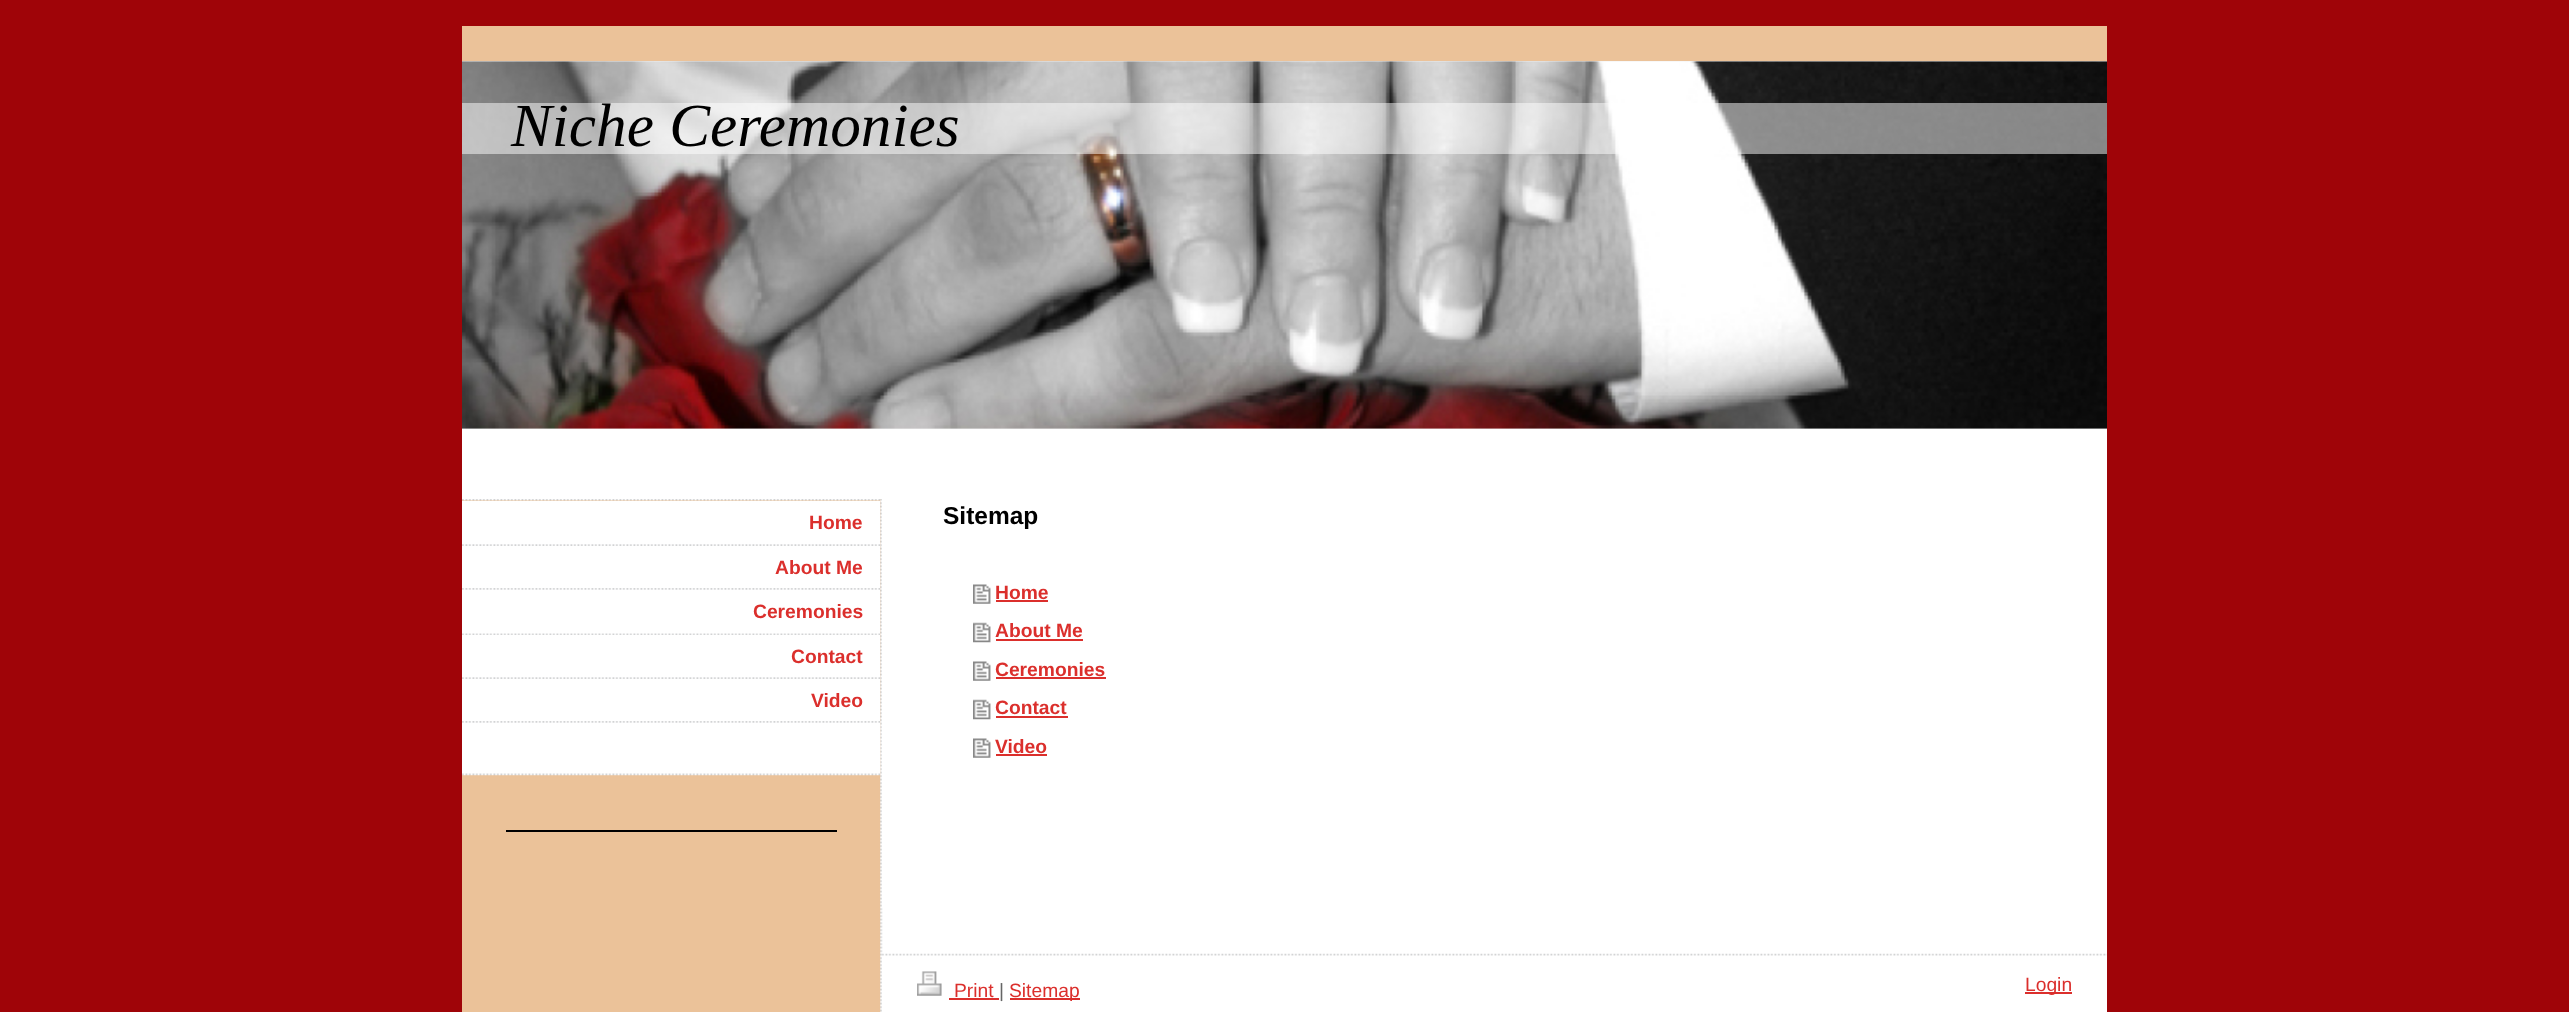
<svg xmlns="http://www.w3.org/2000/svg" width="2569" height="1012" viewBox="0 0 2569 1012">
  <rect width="100%" height="100%" fill="rgb(159,4,8)"/>
  <rect x="462" y="499" width="419" height="513" fill="rgb(235,194,153)"/>
  <image x="880" y="499" width="1227" height="513" href="pic1.png"/>
  <rect x="462" y="429" width="1645" height="70" fill="rgb(255,255,255)"/>
  <rect x="462" y="26" width="1645" height="35" fill="rgb(235,194,153)"/>
  <rect x="462" y="61" width="1645" height="368" fill="rgb(238,238,238)"/>
  <image x="462" y="61" width="1645" height="368" href="pic2.png"/>
  <rect x="462" y="103" width="1645" height="51" fill="rgba(255,255,255,0.5)"/>
  <text x="511" y="146" font-family="Liberation Serif" font-size="61.25" font-style="italic" fill="rgb(0,0,0)">Niche Ceremonies</text>
  <image x="462" y="721" width="419" height="55" href="pic3.png"/>
  <image x="462" y="499" width="419" height="2" href="pic4.png"/>
  <rect x="462" y="501" width="418" height="44" fill="rgb(255,255,255)"/>
  <image x="462" y="544" width="419" height="2" href="pic5.png"/>
  <text x="809" y="529" font-family="Liberation Sans" font-size="19.25" font-weight="bold" fill="rgb(219,47,44)">Home</text>
  <rect x="462" y="546" width="418" height="88" fill="rgb(255,255,255)"/>
  <image x="462" y="588" width="419" height="2" href="pic6.png"/>
  <text x="775" y="574" font-family="Liberation Sans" font-size="19.25" font-weight="bold" fill="rgb(219,47,44)">About Me</text>
  <image x="462" y="633" width="418" height="2" href="pic7.png"/>
  <text x="753" y="618" font-family="Liberation Sans" font-size="19.25" font-weight="bold" fill="rgb(219,47,44)">Ceremonies</text>
  <rect x="462" y="635" width="418" height="43" fill="rgb(255,255,255)"/>
  <image x="462" y="677" width="419" height="2" href="pic5.png"/>
  <text x="791" y="663" font-family="Liberation Sans" font-size="19.25" font-weight="bold" fill="rgb(219,47,44)">Contact</text>
  <rect x="462" y="679" width="418" height="42" fill="rgb(255,255,255)"/>
  <image x="462" y="721" width="418" height="2" href="pic8.png"/>
  <text x="811" y="707" font-family="Liberation Sans" font-size="19.25" font-weight="bold" fill="rgb(219,47,44)">Video</text>
  <rect x="506" y="830" width="331" height="2" fill="rgb(0,0,0)"/>
  <rect x="882" y="499" width="1" height="408" fill="rgb(255,255,255)"/>
  <text x="943" y="524" font-family="Liberation Sans" font-size="24.5" font-weight="bold" fill="rgb(0,0,0)">Sitemap</text>
  <image x="973" y="584" width="18" height="20" href="pic9.png"/>
  <text x="995" y="599" font-family="Liberation Sans" font-size="19.25" font-weight="bold" fill="rgb(219,47,44)">Home</text>
  <rect x="996" y="600" width="52" height="2" fill="rgb(219,47,44)"/>
  <image x="973" y="622" width="18" height="21" href="pic10.png"/>
  <text x="995" y="637" font-family="Liberation Sans" font-size="19.25" font-weight="bold" fill="rgb(219,47,44)">About Me</text>
  <rect x="996" y="639" width="87" height="2" fill="rgb(219,47,44)"/>
  <image x="973" y="661" width="18" height="20" href="pic9.png"/>
  <text x="995" y="676" font-family="Liberation Sans" font-size="19.25" font-weight="bold" fill="rgb(219,47,44)">Ceremonies</text>
  <rect x="996" y="677" width="110" height="2" fill="rgb(219,47,44)"/>
  <image x="973" y="699" width="18" height="21" href="pic10.png"/>
  <text x="995" y="714" font-family="Liberation Sans" font-size="19.25" font-weight="bold" fill="rgb(219,47,44)">Contact</text>
  <rect x="996" y="716" width="72" height="2" fill="rgb(219,47,44)"/>
  <image x="973" y="738" width="18" height="20" href="pic9.png"/>
  <text x="995" y="753" font-family="Liberation Sans" font-size="19.25" font-weight="bold" fill="rgb(219,47,44)">Video</text>
  <rect x="996" y="754" width="51" height="2" fill="rgb(219,47,44)"/>
  <rect x="882" y="955" width="1" height="57" fill="rgb(255,255,255)"/>
  <image x="882" y="953" width="1225" height="3" href="pic11.png"/>
  <image x="917" y="971" width="25" height="25" href="pic12.png"/>
  <text x="954" y="997" font-family="Liberation Sans" font-size="19.25" fill="rgb(219,47,44)">Print</text>
  <rect x="949" y="998" width="50" height="2" fill="rgb(219,47,44)"/>
  <text x="999" y="997" font-family="Liberation Sans" font-size="19.25" fill="rgb(102,102,102)">|</text>
  <rect x="1010" y="998" width="70" height="2" fill="rgb(219,47,44)"/>
  <text x="1009" y="997" font-family="Liberation Sans" font-size="19.25" fill="rgb(219,47,44)">Sitemap</text>
  <rect x="2025" y="992" width="47" height="2" fill="rgb(219,47,44)"/>
  <text x="2025" y="991" font-family="Liberation Sans" font-size="19.25" fill="rgb(219,47,44)">Login</text>
</svg>
